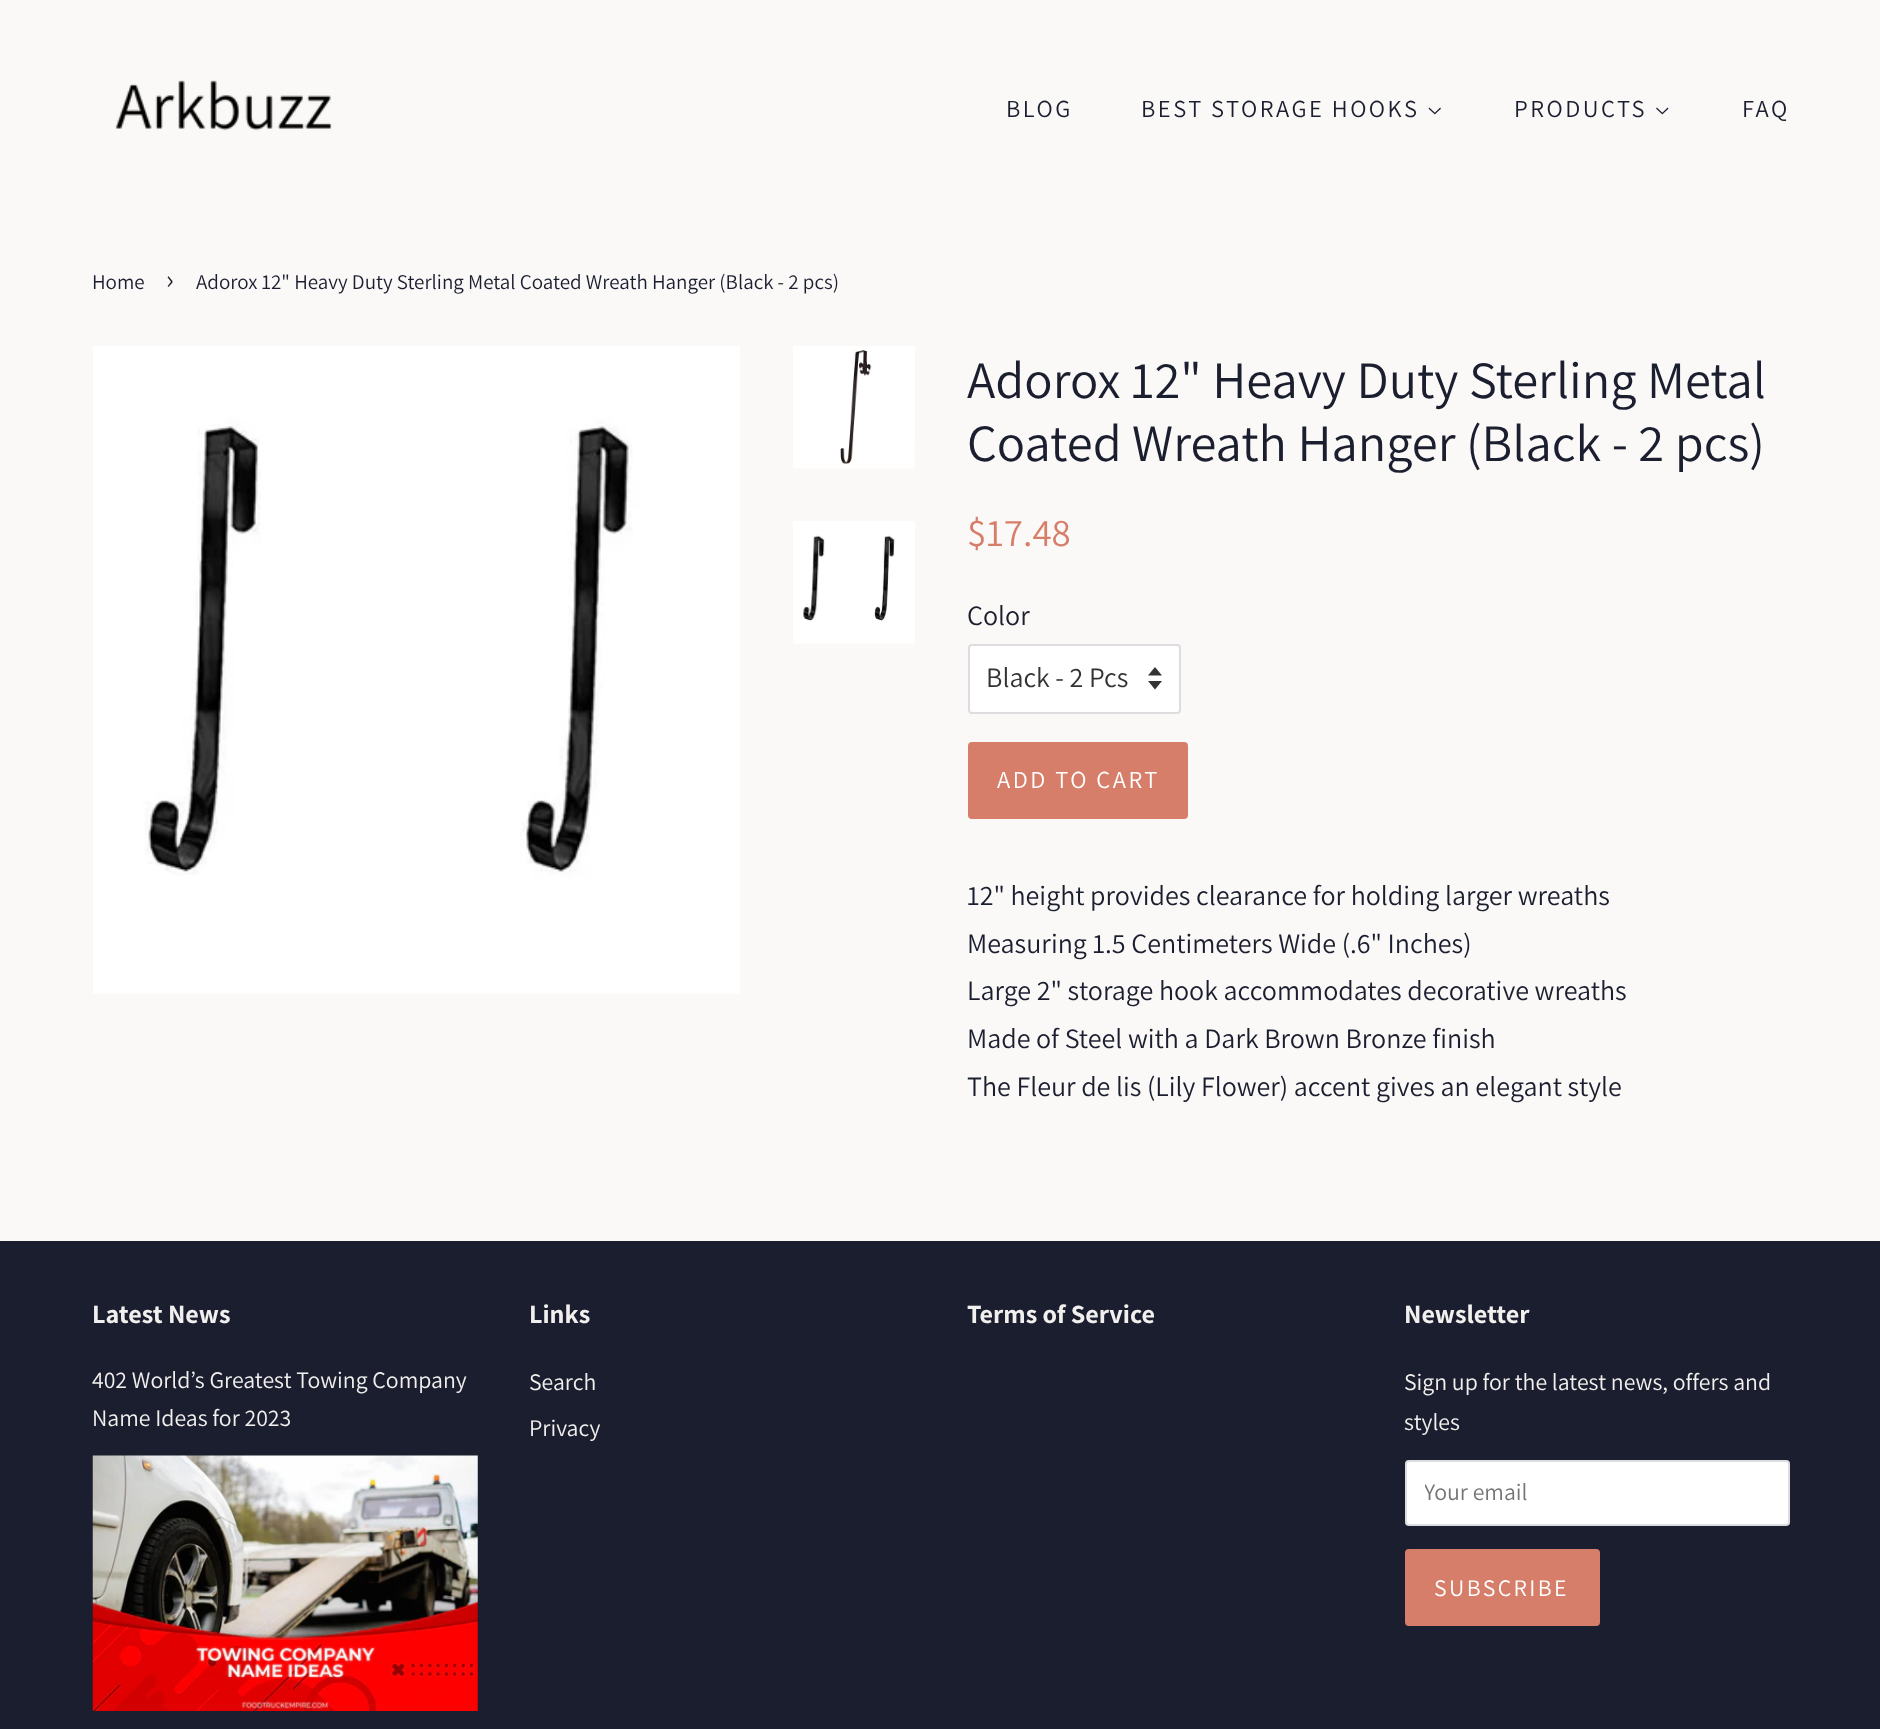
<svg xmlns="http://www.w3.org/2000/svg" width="1880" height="1729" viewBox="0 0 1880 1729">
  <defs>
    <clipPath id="clip1"><rect x="1425" y="1475" width="346" height="32"/></clipPath>
  </defs>
  <rect width="100%" height="100%" fill="rgb(250,249,247)"/>
  <image x="115" y="80" width="217" height="51" href="pic1.png"/>
  <g font-family="Assistant" font-size="24.5" letter-spacing="2.5" fill="rgb(27,30,47)">
    <text x="1006" y="117">BLOG</text>
    <text x="1141" y="117">BEST STORAGE HOOKS</text>
  </g>
  <image x="1428" y="107" width="13" height="8" href="pic2.png"/>
  <text x="1514" y="117" font-family="Assistant" font-size="24.5" letter-spacing="2.5" fill="rgb(27,30,47)">PRODUCTS</text>
  <image x="1656" y="107" width="13" height="8" href="pic3.png"/>
  <text x="1742" y="117" font-family="Assistant" font-size="24.5" letter-spacing="2.5" fill="rgb(27,30,47)">FAQ</text>
  <text x="92" y="289" font-family="Assistant" font-size="21" fill="rgb(27,30,47)">Home</text>
  <text x="166" y="289" font-family="Assistant" font-size="29" fill="rgb(27,30,47)">›</text>
  <text x="196" y="289" font-family="Assistant" font-size="21" fill="rgb(27,30,47)">Adorox 12" Heavy Duty Sterling Metal Coated Wreath Hanger (Black - 2 pcs)</text>
  <image x="93" y="346" width="647" height="648" href="pic4.png"/>
  <image x="793" y="346" width="122" height="123" href="pic5.png"/>
  <image x="793" y="521" width="122" height="123" href="pic6.png"/>
  <g font-family="Assistant" font-size="52.5" fill="rgb(27,30,47)">
    <text>
      <tspan x="967" y="398">Adorox 12" Heavy Duty Sterling Metal</tspan>
      <tspan x="967" y="461">Coated Wreath Hanger (Black - 2 pcs)</tspan>
    </text>
  </g>
  <text x="967" y="546" font-family="Assistant" font-size="39" fill="rgb(215,126,106)">$17.48</text>
  <text x="967" y="625" font-family="Assistant" font-size="28" fill="rgb(27,30,47)">Color</text>
  <rect x="968" y="644" width="213" height="70" rx="4" fill="rgb(255,255,255)"/>
  <path d="M1148 681L1155 689.5L1162 681ZM1155 667L1148 675.5H1162Z" fill="rgb(51,51,51)"/>
  <rect x="969" y="645" width="211" height="68" rx="3" fill="none" stroke="rgba(27,30,47,0.15)" stroke-width="2"/>
  <text x="986" y="687" font-family="Assistant" font-size="28" fill="rgb(51,51,51)">Black - 2 Pcs</text>
  <rect x="968" y="742" width="220" height="77" rx="4" fill="rgb(215,126,106)"/>
  <text x="997" y="788" font-family="Assistant" font-size="24.5" letter-spacing="2.5" fill="rgb(255,255,255)">ADD TO CART</text>
  <g font-family="Assistant" font-size="28" fill="rgb(27,30,47)">
    <text>
      <tspan x="967" y="905">12" height provides clearance for holding larger wreaths</tspan>
      <tspan x="967" y="953">Measuring 1.5 Centimeters Wide (.6" Inches)</tspan>
      <tspan x="967" y="1000">Large 2" storage hook accommodates decorative wreaths</tspan>
      <tspan x="967" y="1048">Made of Steel with a Dark Brown Bronze finish</tspan>
      <tspan x="967" y="1096">The Fleur de lis (Lily Flower) accent gives an elegant style</tspan>
    </text>
  </g>
  <rect x="0" y="1241" width="1880" height="488" fill="rgb(27,30,47)"/>
  <text x="92" y="1323" font-family="Assistant" font-size="26.25" font-weight="bold" fill="rgb(242,240,238)">Latest News</text>
  <g font-family="Assistant" font-size="23.75" fill="rgb(242,240,238)">
    <text>
      <tspan x="92" y="1388">402 World’s Greatest Towing Company</tspan>
      <tspan x="92" y="1426">Name Ideas for 2023</tspan>
    </text>
  </g>
  <image x="92" y="1455" width="386" height="256" href="pic7.png"/>
  <text x="529" y="1323" font-family="Assistant" font-size="26.25" font-weight="bold" fill="rgb(242,240,238)">Links</text>
  <g font-family="Assistant" font-size="23.75" fill="rgb(242,240,238)">
    <text>
      <tspan x="529" y="1390">Search</tspan>
      <tspan x="529" y="1436">Privacy</tspan>
    </text>
  </g>
  <g font-family="Assistant" font-size="26.25" font-weight="bold" fill="rgb(242,240,238)">
    <text x="967" y="1323">Terms of Service</text>
    <text x="1404" y="1323">Newsletter</text>
  </g>
  <g font-family="Assistant" font-size="23.75" fill="rgb(242,240,238)">
    <text>
      <tspan x="1404" y="1390">Sign up for the latest news, offers and</tspan>
      <tspan x="1404" y="1430">styles</tspan>
    </text>
  </g>
  <rect x="1405" y="1460" width="385" height="66" rx="4" fill="rgb(255,255,255)"/>
  <rect x="1406" y="1461" width="383" height="64" rx="3" fill="none" stroke="rgba(27,30,47,0.15)" stroke-width="2"/>
  <g clip-path="url(#clip1)">
    <text x="1424" y="1500" font-family="Assistant" font-size="23.75" fill="rgb(117,117,117)">Your email</text>
  </g>
  <rect x="1405" y="1549" width="195" height="77" rx="4" fill="rgb(215,126,106)"/>
  <text x="1434" y="1596" font-family="Assistant" font-size="23.75" letter-spacing="2.4" fill="rgb(255,255,255)">SUBSCRIBE</text>
</svg>
